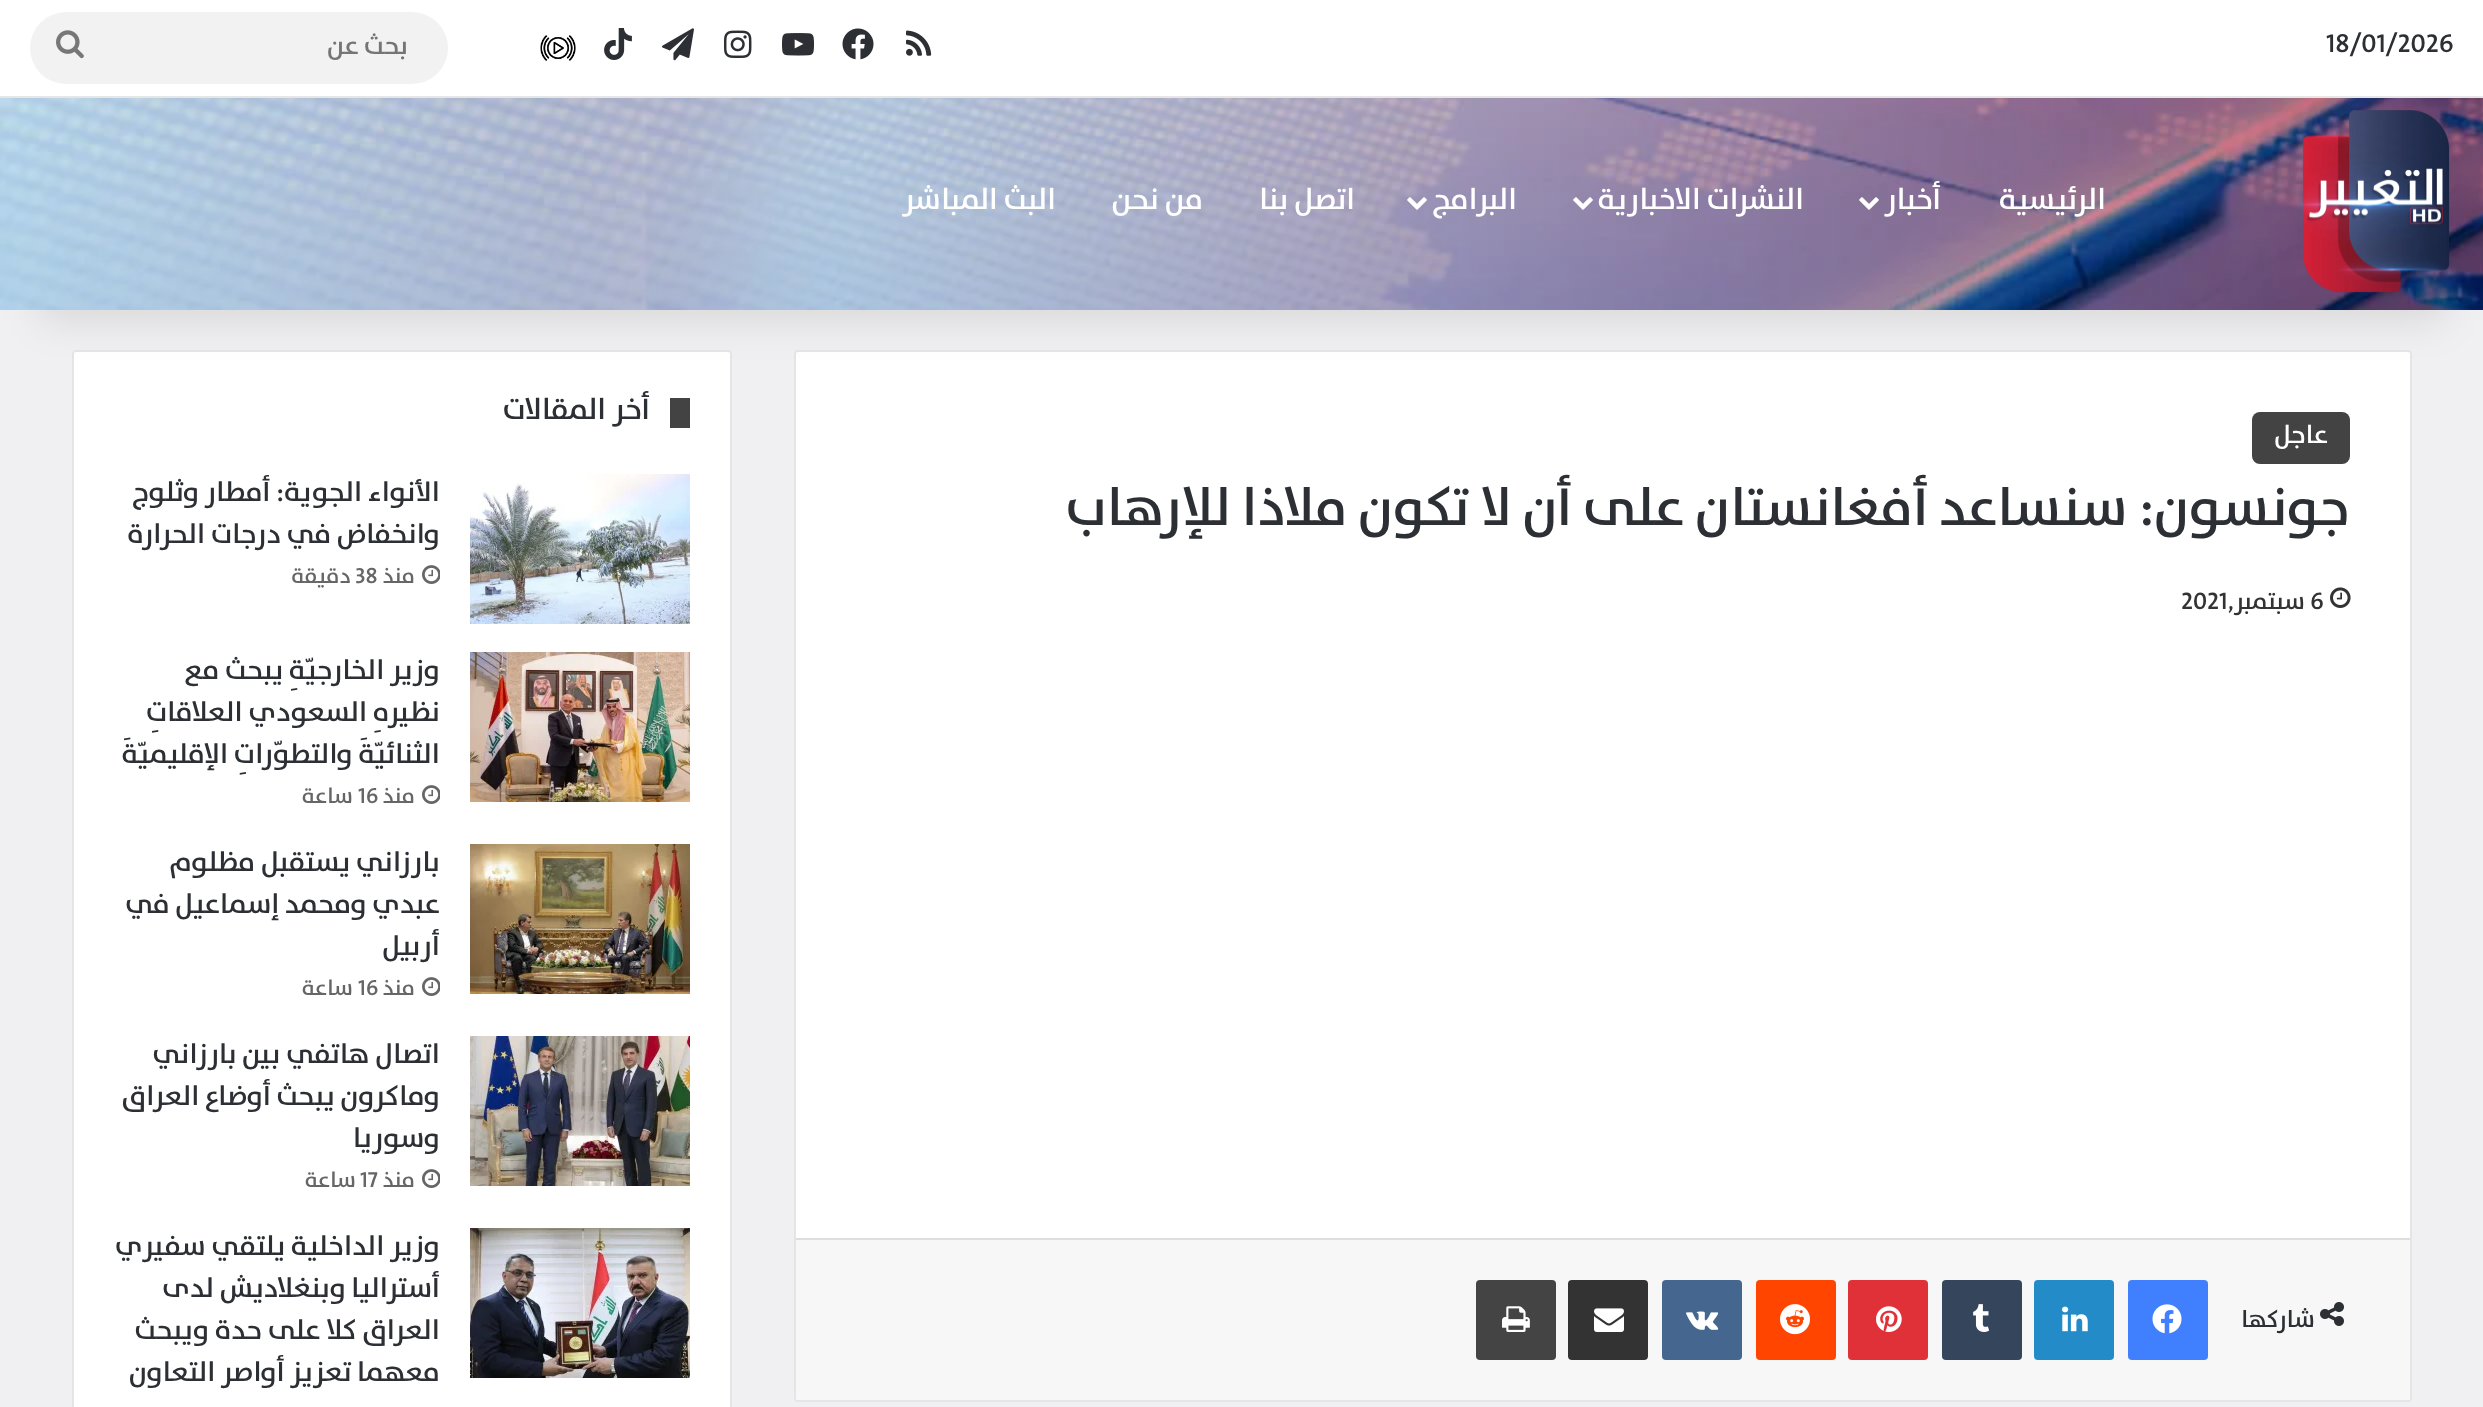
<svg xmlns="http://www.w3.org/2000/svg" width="2483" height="1407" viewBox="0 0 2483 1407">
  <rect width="100%" height="100%" fill="rgb(240,240,242)"/>
  <rect x="794" y="350" width="1618" height="1052" rx="4" fill="rgb(255,255,255)"/>
  <rect x="795" y="351" width="1616" height="1050" rx="3" fill="none" stroke="rgba(0,0,0,0.1)" stroke-width="2"/>
  <rect x="72" y="350" width="660" height="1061" rx="4" fill="rgb(255,255,255)"/>
  <rect x="73" y="351" width="658" height="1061" rx="3" fill="none" stroke="rgba(0,0,0,0.1)" stroke-width="2"/>
  <rect x="40" y="90" width="2404" height="230" fill="rgba(0,0,0,0.1)" filter="blur(20px)"/>
  <rect x="0" y="0" width="2483" height="96" fill="rgb(255,255,255)"/>
  <rect x="0" y="96" width="2483" height="2" fill="rgb(230,230,230)"/>
  <text x="2326" y="52" font-family="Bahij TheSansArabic" font-size="26" font-weight="600" fill="rgb(44,47,52)">18/01/2026</text>
  <image x="906" y="30" width="26" height="26" href="pic1.png"/>
  <image x="842" y="28" width="32" height="32" href="pic2.png"/>
  <image x="782" y="33" width="32" height="23" href="pic3.png"/>
  <image x="724" y="30" width="28" height="28" href="pic4.png"/>
  <image x="662" y="28" width="32" height="33" href="pic5.png"/>
  <image x="604" y="28" width="28" height="32" href="pic6.png"/>
  <image x="540" y="35" width="36" height="26" href="pic7.png"/>
  <rect x="30" y="12" width="418" height="72" rx="36" fill="rgb(242,242,242)"/>
  <text x="408" y="54" font-family="Bahij TheSansArabic" font-size="26" font-weight="600" direction="rtl" fill="rgb(117,117,117)">بحث عن</text>
  <image x="56" y="30" width="28" height="29" href="pic8.png"/>
  <image x="0" y="98" width="2483" height="212" href="pic9.png"/>
  <image x="2298" y="110" width="152" height="183" href="pic10.png"/>
  <g font-family="Bahij TheSansArabic" font-size="30" font-weight="600" direction="rtl" fill="rgb(255,255,255)">
    <text x="2106" y="209">الرئيسية</text>
    <text x="1941" y="209">أخبار</text>
  </g>
  <image x="1859" y="197" width="20" height="13" href="pic11.png"/>
  <text x="1804" y="209" font-family="Bahij TheSansArabic" font-size="30" font-weight="600" direction="rtl" fill="rgb(255,255,255)">النشرات الاخبارية</text>
  <image x="1573" y="197" width="20" height="13" href="pic12.png"/>
  <text x="1517" y="209" font-family="Bahij TheSansArabic" font-size="30" font-weight="600" direction="rtl" fill="rgb(255,255,255)">البرامج</text>
  <image x="1407" y="197" width="20" height="13" href="pic13.png"/>
  <g font-family="Bahij TheSansArabic" font-size="30" font-weight="600" direction="rtl" fill="rgb(255,255,255)">
    <text x="1355" y="209">اتصل بنا</text>
    <text x="1203" y="209">من نحن</text>
    <text x="1056" y="209">البث المباشر</text>
  </g>
  <rect x="2252" y="412" width="98" height="52" rx="8" fill="rgb(67,67,67)"/>
  <text x="2328" y="443" font-family="Bahij TheSansArabic" font-size="26" font-weight="600" direction="rtl" fill="rgb(255,255,255)">عاجل</text>
  <text x="2350" y="525" font-family="Bahij TheSansArabic" font-size="54" font-weight="600" direction="rtl" fill="rgb(44,47,52)">جونسون: سنساعد أفغانستان على أن لا تكون ملاذا للإرهاب</text>
  <image x="2330" y="587" width="21" height="21" href="pic14.png"/>
  <text x="2310" y="609" font-family="Bahij TheSansArabic" font-size="24" font-weight="600" fill="rgb(51,51,51)">6</text>
  <text x="2305" y="609" font-family="Bahij TheSansArabic" font-size="24" font-weight="600" direction="rtl" fill="rgb(51,51,51)">سبتمبر,</text>
  <text x="2181" y="609" font-family="Bahij TheSansArabic" font-size="24" font-weight="600" fill="rgb(51,51,51)">2021</text>
  <rect x="796" y="1240" width="1614" height="160" fill="rgb(247,247,247)"/>
  <rect x="796" y="1238" width="1614" height="2" fill="rgb(222,222,222)"/>
  <image x="2320" y="1302" width="24" height="24" href="pic15.png"/>
  <text x="2315" y="1327" font-family="Bahij TheSansArabic" font-size="24" font-weight="600" direction="rtl" fill="rgb(44,47,52)">شاركها</text>
  <rect x="2128" y="1280" width="80" height="80" rx="4" fill="rgb(64,128,255)"/>
  <image x="2152" y="1304" width="30" height="30" href="pic16.png"/>
  <rect x="2034" y="1280" width="80" height="80" rx="4" fill="rgb(35,140,200)"/>
  <image x="2062" y="1306" width="26" height="26" href="pic17.png"/>
  <rect x="1942" y="1280" width="80" height="80" rx="4" fill="rgb(53,70,92)"/>
  <image x="1973" y="1304" width="17" height="28" href="pic18.png"/>
  <rect x="1848" y="1280" width="80" height="80" rx="4" fill="rgb(225,49,56)"/>
  <image x="1876" y="1306" width="26" height="26" href="pic19.png"/>
  <rect x="1756" y="1280" width="80" height="80" rx="4" fill="rgb(255,69,0)"/>
  <image x="1780" y="1304" width="30" height="31" href="pic20.png"/>
  <rect x="1662" y="1280" width="80" height="80" rx="4" fill="rgb(69,102,142)"/>
  <image x="1686" y="1311" width="33" height="19" href="pic21.png"/>
  <rect x="1568" y="1280" width="80" height="80" rx="4" fill="rgb(51,51,51)"/>
  <image x="1594" y="1308" width="30" height="24" href="pic22.png"/>
  <rect x="1476" y="1280" width="80" height="80" rx="4" fill="rgb(68,68,68)"/>
  <image x="1502" y="1306" width="28" height="26" href="pic23.png"/>
  <rect x="670" y="398" width="20" height="30" fill="rgb(67,67,67)"/>
  <text x="650" y="419" font-family="Bahij TheSansArabic" font-size="30" font-weight="600" direction="rtl" fill="rgb(44,47,52)">أخر المقالات</text>
  <image x="470" y="474" width="220" height="150" href="pic24.png"/>
  <g font-family="Bahij TheSansArabic" font-size="28" font-weight="600" direction="rtl" fill="rgb(44,47,52)">
    <text>
      <tspan x="440" y="501">الأنواء الجوية: أمطار وثلوج</tspan>
      <tspan x="440" y="543">وانخفاض في درجات الحرارة</tspan>
    </text>
  </g>
  <image x="422" y="565" width="18" height="19" href="pic25.png"/>
  <text x="415" y="583" font-family="Bahij TheSansArabic" font-size="22" font-weight="600" direction="rtl" fill="rgb(102,102,102)">منذ</text>
  <text x="355" y="583" font-family="Bahij TheSansArabic" font-size="22" font-weight="600" fill="rgb(102,102,102)">38</text>
  <text x="351" y="583" font-family="Bahij TheSansArabic" font-size="22" font-weight="600" direction="rtl" fill="rgb(102,102,102)">دقيقة</text>
  <image x="470" y="652" width="220" height="150" href="pic26.png"/>
  <g font-family="Bahij TheSansArabic" font-size="28" font-weight="600" direction="rtl" fill="rgb(44,47,52)">
    <text>
      <tspan x="440" y="679">وزير الخارجيّةِ يبحث مع</tspan>
      <tspan x="440" y="721">نظيرهِ السعودي العلاقاتِ</tspan>
      <tspan x="440" y="763">الثنائيّةَ والتطوّراتِ الإقليميّةَ</tspan>
    </text>
  </g>
  <image x="422" y="785" width="18" height="19" href="pic25.png"/>
  <text x="415" y="803" font-family="Bahij TheSansArabic" font-size="22" font-weight="600" direction="rtl" fill="rgb(102,102,102)">منذ</text>
  <text x="358" y="803" font-family="Bahij TheSansArabic" font-size="22" font-weight="600" fill="rgb(102,102,102)">16</text>
  <text x="353" y="803" font-family="Bahij TheSansArabic" font-size="22" font-weight="600" direction="rtl" fill="rgb(102,102,102)">ساعة</text>
  <image x="470" y="844" width="220" height="150" href="pic27.png"/>
  <g font-family="Bahij TheSansArabic" font-size="28" font-weight="600" direction="rtl" fill="rgb(44,47,52)">
    <text>
      <tspan x="440" y="871">بارزاني يستقبل مظلوم</tspan>
      <tspan x="440" y="913">عبدي ومحمد إسماعيل في</tspan>
      <tspan x="440" y="955">أربيل</tspan>
    </text>
  </g>
  <image x="422" y="977" width="18" height="19" href="pic25.png"/>
  <text x="415" y="995" font-family="Bahij TheSansArabic" font-size="22" font-weight="600" direction="rtl" fill="rgb(102,102,102)">منذ</text>
  <text x="358" y="995" font-family="Bahij TheSansArabic" font-size="22" font-weight="600" fill="rgb(102,102,102)">16</text>
  <text x="353" y="995" font-family="Bahij TheSansArabic" font-size="22" font-weight="600" direction="rtl" fill="rgb(102,102,102)">ساعة</text>
  <image x="470" y="1036" width="220" height="150" href="pic28.png"/>
  <g font-family="Bahij TheSansArabic" font-size="28" font-weight="600" direction="rtl" fill="rgb(44,47,52)">
    <text>
      <tspan x="440" y="1063">اتصال هاتفي بين بارزاني</tspan>
      <tspan x="440" y="1105">وماكرون يبحث أوضاع العراق</tspan>
      <tspan x="440" y="1147">وسوريا</tspan>
    </text>
  </g>
  <image x="422" y="1169" width="18" height="19" href="pic25.png"/>
  <text x="415" y="1187" font-family="Bahij TheSansArabic" font-size="22" font-weight="600" direction="rtl" fill="rgb(102,102,102)">منذ</text>
  <text x="360" y="1187" font-family="Bahij TheSansArabic" font-size="22" font-weight="600" fill="rgb(102,102,102)">17</text>
  <text x="356" y="1187" font-family="Bahij TheSansArabic" font-size="22" font-weight="600" direction="rtl" fill="rgb(102,102,102)">ساعة</text>
  <image x="470" y="1228" width="220" height="150" href="pic29.png"/>
  <g font-family="Bahij TheSansArabic" font-size="28" font-weight="600" direction="rtl" fill="rgb(44,47,52)">
    <text>
      <tspan x="440" y="1255">وزير الداخلية يلتقي سفيري</tspan>
      <tspan x="440" y="1297">أستراليا وبنغلاديش لدى</tspan>
      <tspan x="440" y="1339">العراق كلا على حدة ويبحث</tspan>
      <tspan x="440" y="1381">معهما تعزيز أواصر التعاون</tspan>
    </text>
  </g>
</svg>
